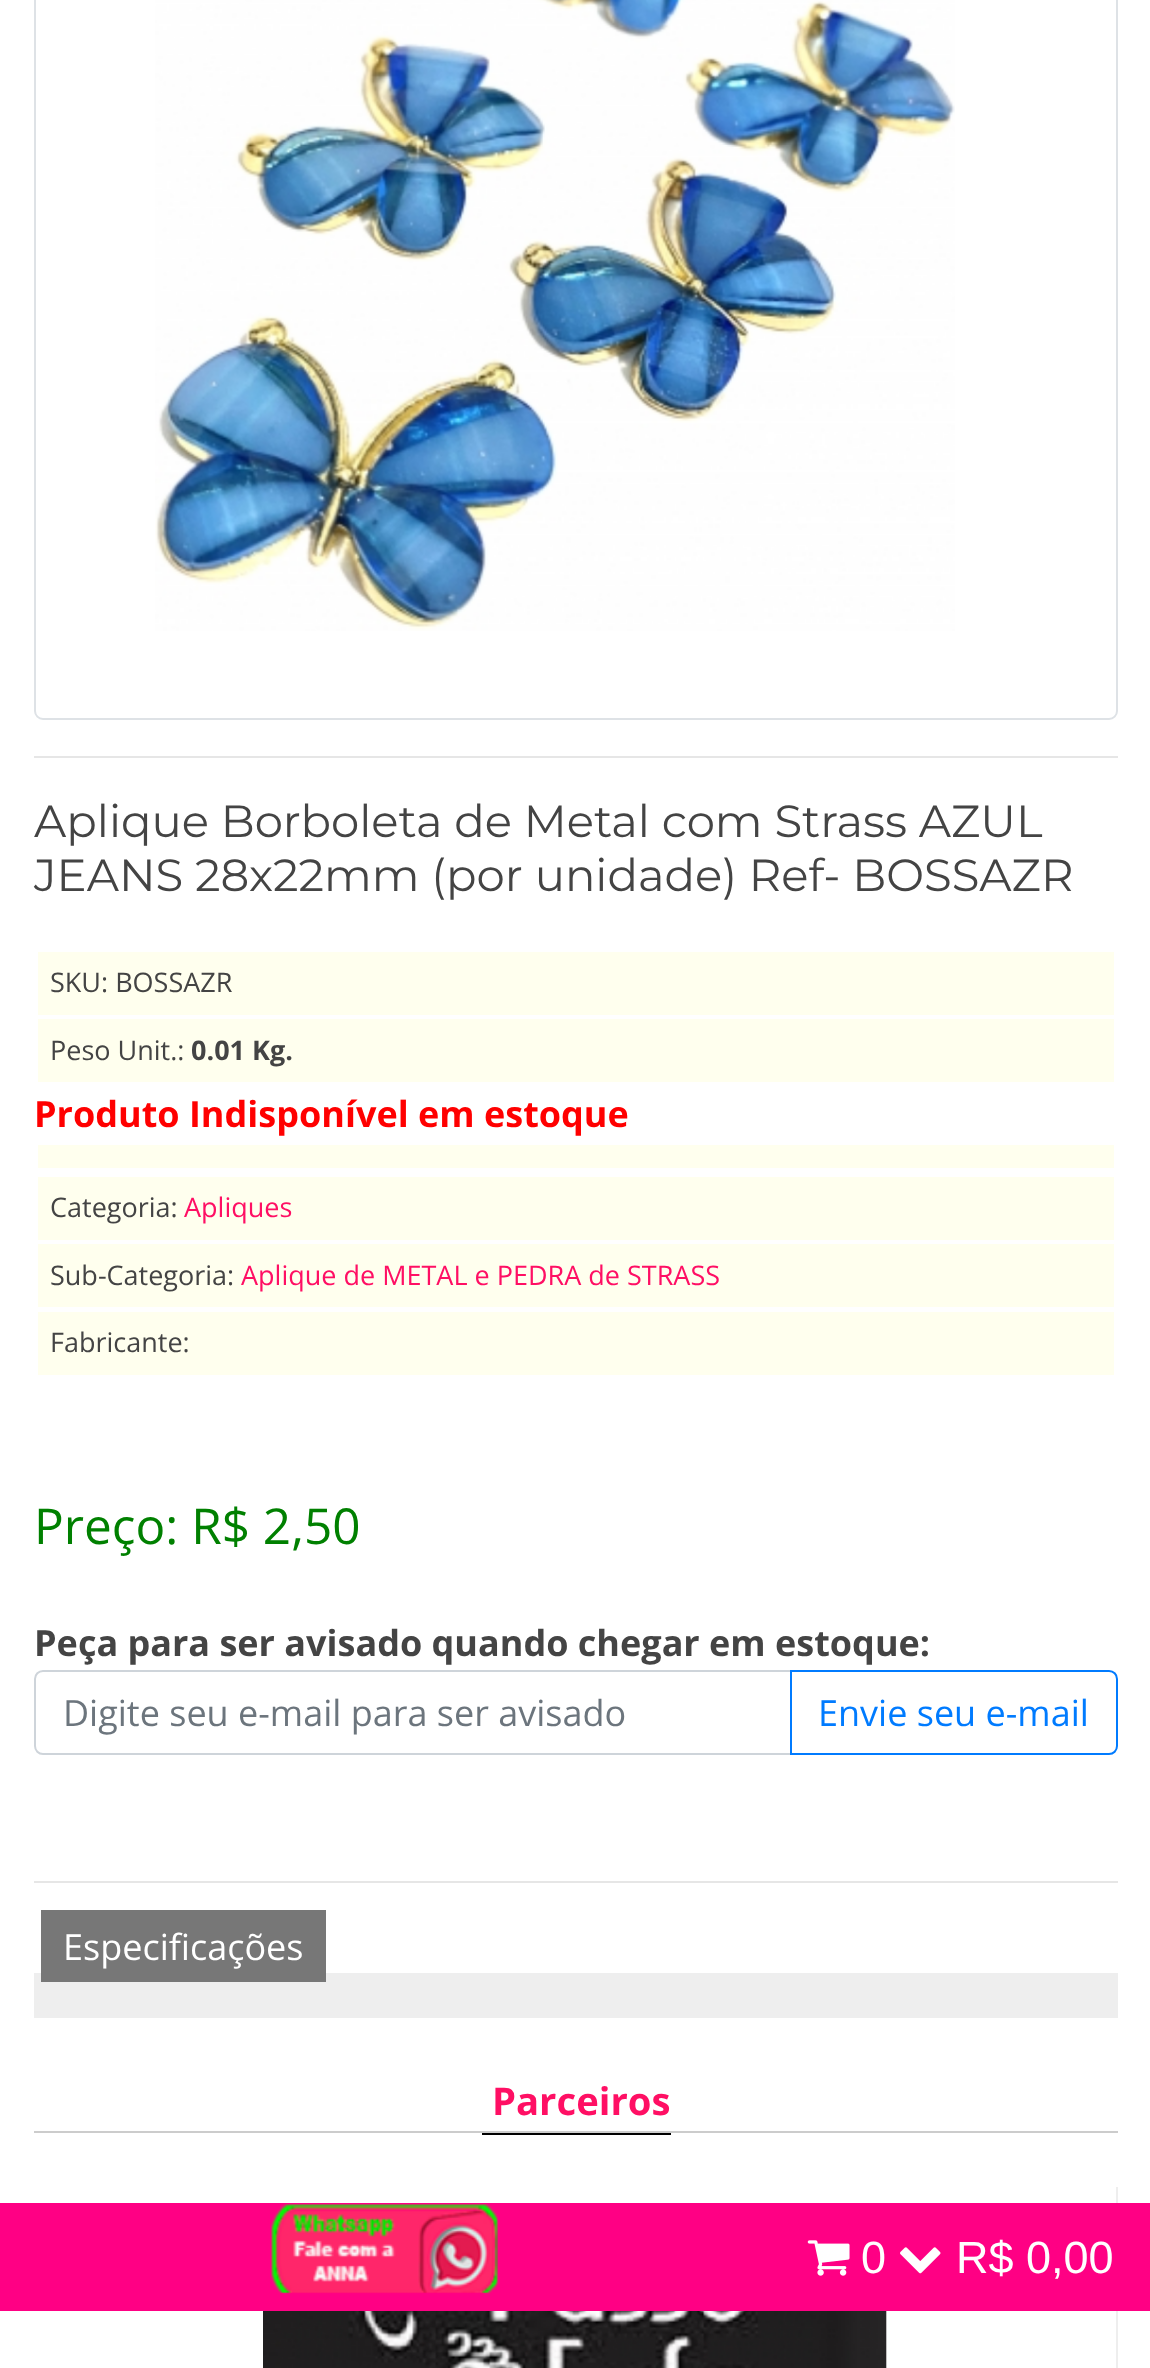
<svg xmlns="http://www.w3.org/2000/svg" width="1150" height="2368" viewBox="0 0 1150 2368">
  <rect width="100%" height="100%" fill="rgb(255,255,255)"/>
  <rect x="35" y="-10" width="1082" height="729" rx="8" fill="none" stroke="rgb(222,226,230)" stroke-width="2"/>
  <image x="155" y="0" width="800" height="631" href="pic1.png"/>
  <rect x="34" y="756" width="1084" height="2" fill="rgb(230,230,230)"/>
  <g font-family="Montserrat" font-size="45" fill="rgb(68,68,68)">
    <text>
      <tspan x="34" y="837">Aplique Borboleta de Metal com Strass AZUL</tspan>
      <tspan x="34" y="891">JEANS 28x22mm (por unidade) Ref- BOSSAZR</tspan>
    </text>
  </g>
  <rect x="38" y="952" width="1076" height="63" fill="rgb(255,255,238)"/>
  <text x="50" y="992" font-family="Open Sans" font-size="27" fill="rgb(68,68,68)">SKU: BOSSAZR</text>
  <rect x="38" y="1019" width="1076" height="63" fill="rgb(255,255,238)"/>
  <text x="50" y="1060" font-family="Open Sans" font-size="27" fill="rgb(68,68,68)">Peso Unit.:</text>
  <text x="191" y="1060" font-family="Open Sans" font-size="27" font-weight="bold" fill="rgb(68,68,68)">0.01 Kg.</text>
  <text x="34" y="1127" font-family="Open Sans" font-size="36" font-weight="bold" fill="rgb(255,0,0)">Produto Indisponível em estoque</text>
  <rect x="38" y="1145" width="1076" height="23" fill="rgb(255,255,238)"/>
  <rect x="38" y="1177" width="1076" height="63" fill="rgb(255,255,238)"/>
  <text x="50" y="1217" font-family="Open Sans" font-size="27" fill="rgb(68,68,68)">Categoria:</text>
  <text x="184" y="1217" font-family="Open Sans" font-size="27" fill="rgb(255,15,100)">Apliques</text>
  <rect x="38" y="1244" width="1076" height="63" fill="rgb(255,255,238)"/>
  <text x="50" y="1285" font-family="Open Sans" font-size="27" fill="rgb(68,68,68)">Sub-Categoria:</text>
  <text x="241" y="1285" font-family="Open Sans" font-size="27" fill="rgb(255,15,100)">Aplique de METAL e PEDRA de STRASS</text>
  <rect x="38" y="1312" width="1076" height="63" fill="rgb(255,255,238)"/>
  <text x="50" y="1352" font-family="Open Sans" font-size="27" fill="rgb(68,68,68)">Fabricante:</text>
  <text x="34" y="1544" font-family="Open Sans" font-size="49.5" fill="rgb(0,128,0)">Preço: R$ 2,50</text>
  <text x="34" y="1656" font-family="Open Sans" font-size="36" font-weight="bold" fill="rgb(68,68,68)">Peça para ser avisado quando chegar em estoque:</text>
  <path d="M43 1671H791V1754H43C38.5 1754 35 1750.5 35 1746V1679C35 1674.5 38.5 1671 43 1671Z" fill="none" stroke="rgb(206,212,218)" stroke-width="2"/>
  <text x="63" y="1726" font-family="Open Sans" font-size="36" fill="rgb(108,117,125)">Digite seu e-mail para ser avisado</text>
  <path d="M791 1671H1109C1113.5 1671 1117 1674.5 1117 1679V1746C1117 1750.5 1113.5 1754 1109 1754H791Z" fill="none" stroke="rgb(0,123,255)" stroke-width="2"/>
  <text x="818" y="1726" font-family="Open Sans" font-size="36" fill="rgb(0,123,255)">Envie seu e-mail</text>
  <rect x="34" y="1881" width="1084" height="2" fill="rgb(230,230,230)"/>
  <rect x="34" y="1973" width="1084" height="45" fill="rgb(238,238,238)"/>
  <rect x="41" y="1910" width="285" height="72" fill="rgb(119,119,119)"/>
  <text x="63" y="1960" font-family="Open Sans" font-size="36" fill="rgb(255,255,255)">Especificações</text>
  <rect x="34" y="2131" width="1084" height="2" fill="rgb(204,204,204)"/>
  <text x="492" y="2115" font-family="Open Sans" font-size="38.25" font-weight="bold" fill="rgb(255,15,100)">Parceiros</text>
  <rect x="482" y="2133" width="189" height="2" fill="rgb(0,0,0)"/>
  <rect x="1116" y="2187" width="2" height="181" fill="rgb(238,238,238)"/>
  <image x="263" y="2311" width="624" height="57" href="pic2.png"/>
  <rect x="0" y="2203" width="1150" height="108" fill="rgb(255,0,132)"/>
  <image x="271" y="2204" width="227" height="90" href="pic3.png"/>
  <image x="807" y="2240" width="43" height="36" href="pic4.png"/>
  <text x="861" y="2273" font-family="Liberation Sans" font-size="45" fill="rgb(255,255,255)">0</text>
  <image x="900" y="2247" width="41" height="27" href="pic5.png"/>
  <text x="956" y="2273" font-family="Liberation Sans" font-size="45" fill="rgb(255,255,255)">R$ 0,00</text>
</svg>
